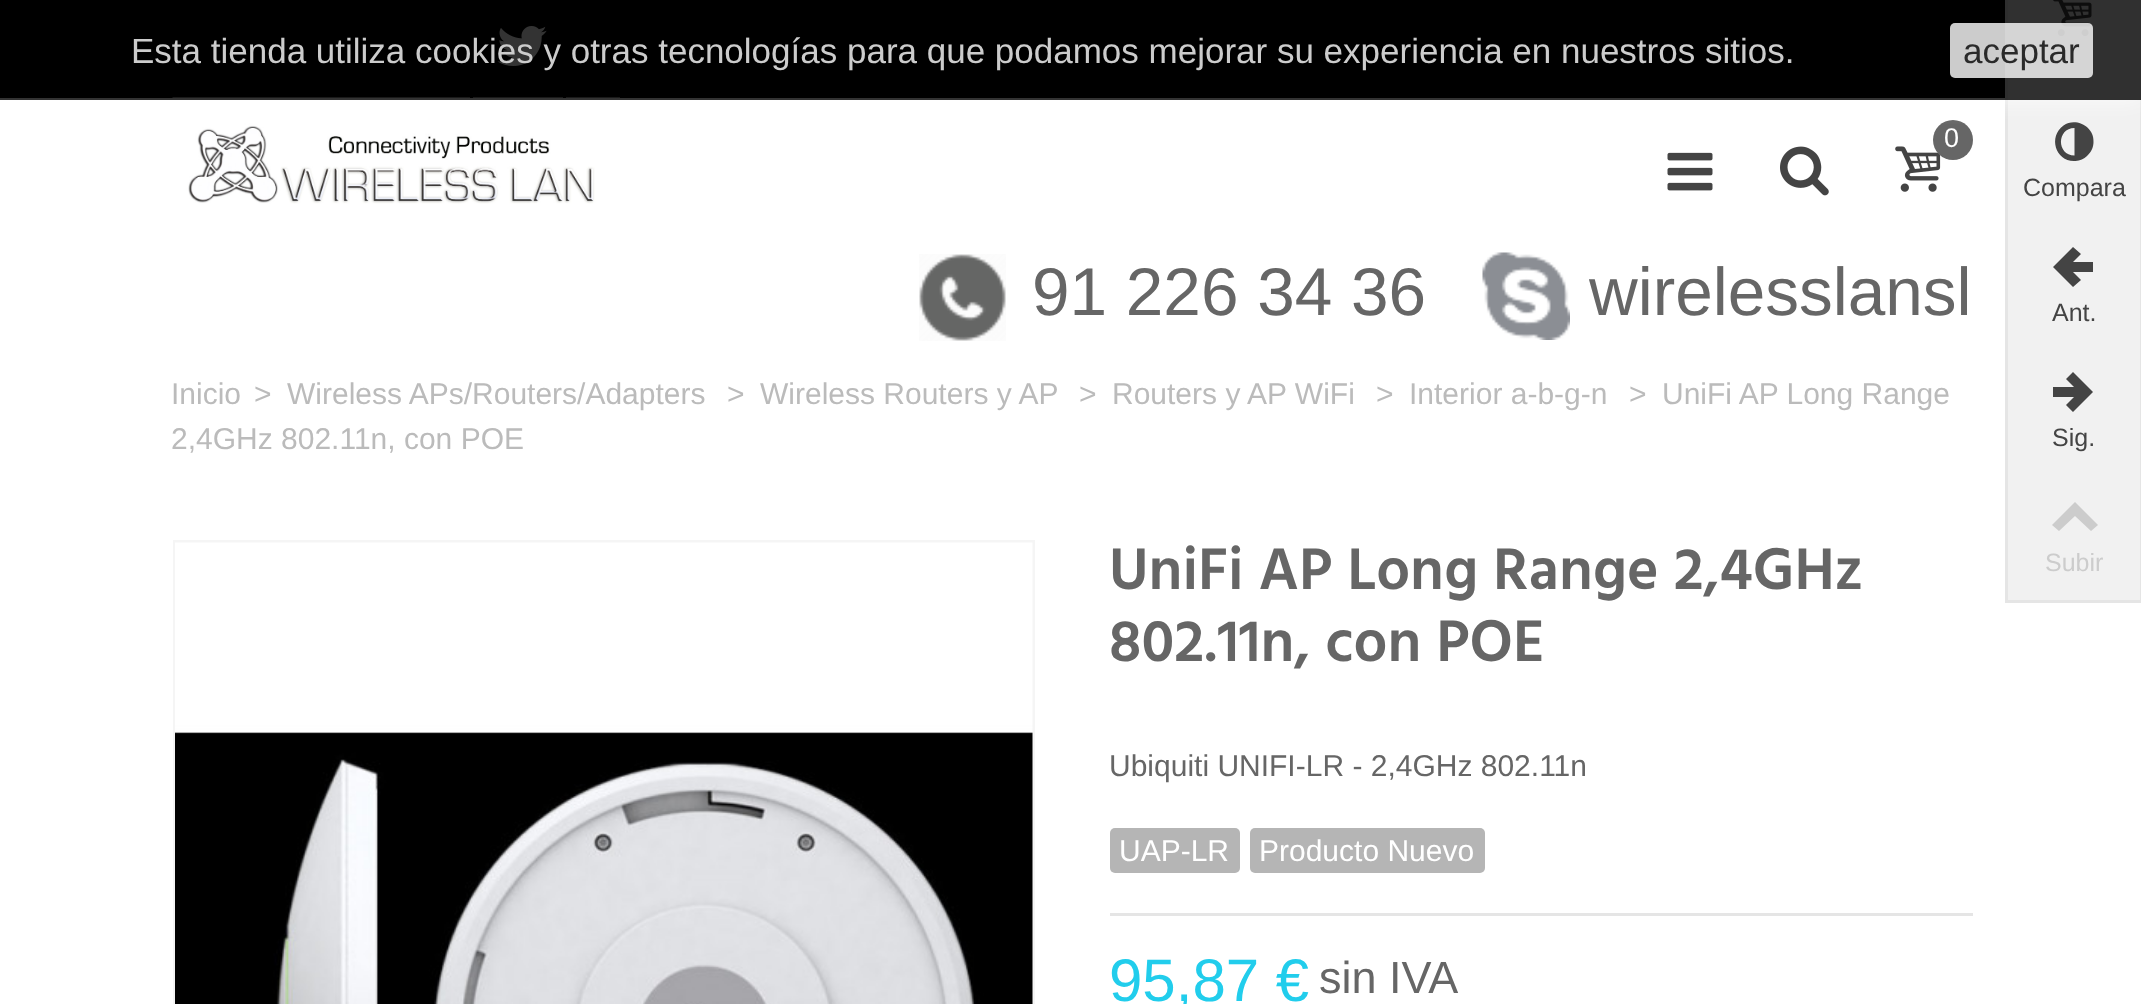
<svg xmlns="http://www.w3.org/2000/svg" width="2141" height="1004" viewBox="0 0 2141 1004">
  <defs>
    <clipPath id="clip1"><rect x="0" y="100" width="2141" height="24"/></clipPath>
  </defs>
  <rect width="100%" height="100%" fill="rgb(255,255,255)"/>
  <rect x="0" y="0" width="2005" height="98" fill="rgb(0,0,0)"/>
  <image x="172" y="97" width="448" height="107" href="pic2.png"/>
  <rect x="563" y="97" width="3" height="1" fill="rgb(0,0,0)"/>
  <rect x="470" y="97" width="3" height="1" fill="rgb(0,0,0)"/>
  <image x="497" y="26" width="50" height="40" href="pic1.png"/>
  <image x="1895" y="146" width="46" height="46" href="pic3.png"/>
  <circle cx="1953" cy="140" r="20" fill="rgb(102,102,102)"/>
  <rect x="2008" y="0" width="132" height="600" fill="rgb(241,241,241)"/>
  <rect x="2140" y="0" width="1" height="603" fill="rgb(229,229,229)"/>
  <rect x="2005" y="0" width="3" height="600" fill="rgb(229,229,229)"/>
  <image x="2053" y="0" width="39" height="37" href="pic9.png"/>
  <path d="M2074.5 155.5V128C2056.5 128 2056.5 155.5 2074.5 155.5ZM2093.5 142C2093.5 147.5 2091 152.5 2087 156C2084 159 2080 160.5 2075.5 161C2056 162.5 2047.5 137 2063.5 125.5C2075.5 117 2094.5 126.5 2093.5 142Z" fill="rgb(68,68,68)"/>
  <g clip-path="url(#clip1)">
    <rect x="0" y="0" width="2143" height="100" fill="rgba(255,255,255,0.8)" filter="blur(12.5px)"/>
  </g>
  <rect x="0" y="0" width="2141" height="100" fill="rgba(0,0,0,0.8)"/>
  <text x="131" y="63" font-family="Liberation Sans" font-size="35" fill="rgb(204,204,204)">Esta tienda utiliza cookies y otras tecnologías para que podamos mejorar su experiencia en nuestros sitios.</text>
  <rect x="1950" y="23" width="143" height="55" rx="5" fill="rgba(255,255,255,0.8)"/>
  <text x="1963" y="63" font-family="Liberation Sans" font-size="35" fill="rgb(42,42,42)">aceptar</text>
  <text x="1944" y="147" font-family="Liberation Sans" font-size="27" fill="rgb(255,255,255)">0</text>
  <image x="1667" y="152" width="46" height="39" href="pic4.png"/>
  <image x="1780" y="146" width="49" height="50" href="pic5.png"/>
  <image x="919" y="254" width="87" height="87" href="pic6.png"/>
  <text x="1032" y="315" font-family="Liberation Sans" font-size="67.5" fill="rgb(102,102,102)">91 226 34 36</text>
  <image x="1482" y="252" width="88" height="88" href="pic7.png"/>
  <text x="1589" y="315" font-family="Liberation Sans" font-size="67.5" fill="rgb(102,102,102)">wirelesslansl</text>
  <g font-family="Liberation Sans" font-size="30" fill="rgb(187,187,187)">
    <text x="171" y="404">Inicio</text>
    <text x="254" y="404">&gt;</text>
    <text x="287" y="404">Wireless APs/Routers/Adapters</text>
    <text x="727" y="404">&gt;</text>
    <text x="760" y="404">Wireless Routers y AP</text>
    <text x="1079" y="404">&gt;</text>
    <text x="1112" y="404">Routers y AP WiFi</text>
    <text x="1376" y="404">&gt;</text>
    <text x="1409" y="404">Interior a-b-g-n</text>
    <text x="1629" y="404">&gt;</text>
    <text x="1662" y="404">UniFi AP Long Range</text>
    <text x="171" y="449">2,4GHz 802.11n, con POE</text>
  </g>
  <rect x="174.5" y="541.5" width="859" height="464" fill="none" stroke="rgb(245,245,245)" stroke-width="3"/>
  <image x="175" y="542" width="858" height="462" href="pic8.png"/>
  <g font-family="Hind" font-size="60" font-weight="600" fill="rgb(102,102,102)">
    <text>
      <tspan x="1109" y="589">UniFi AP Long Range 2,4GHz</tspan>
      <tspan x="1109" y="661">802.11n, con POE</tspan>
    </text>
  </g>
  <text x="1109" y="776" font-family="Liberation Sans" font-size="30" fill="rgb(102,102,102)">Ubiquiti UNIFI-LR - 2,4GHz 802.11n</text>
  <rect x="1110" y="828" width="130" height="45" rx="5" fill="rgb(181,181,181)"/>
  <text x="1119" y="861" font-family="Liberation Sans" font-size="30" fill="rgb(255,255,255)">UAP-LR</text>
  <rect x="1250" y="828" width="235" height="45" rx="5" fill="rgb(181,181,181)"/>
  <text x="1259" y="861" font-family="Liberation Sans" font-size="30" fill="rgb(255,255,255)">Producto Nuevo</text>
  <rect x="1110" y="913" width="863" height="3" fill="rgb(229,229,229)"/>
  <text x="1109" y="1001" font-family="Liberation Sans" font-size="60" fill="rgb(33,205,236)">95,87 €</text>
  <text x="1319" y="993" font-family="Liberation Sans" font-size="45" fill="rgb(102,102,102)">sin IVA</text>
  <rect x="2005" y="600" width="136" height="3" fill="rgb(229,229,229)"/>
  <text x="2023" y="196" font-family="Liberation Sans" font-size="25" fill="rgb(68,68,68)">Compara</text>
  <path d="M2073 287L2053 267L2073 247L2081 254L2073 262H2093V272H2073L2081 280Z" fill="rgb(68,68,68)"/>
  <text x="2052" y="321" font-family="Liberation Sans" font-size="25" fill="rgb(68,68,68)">Ant.</text>
  <path d="M2073 372L2093 392L2073 412L2066 405L2074 397H2053V387H2074L2066 379Z" fill="rgb(68,68,68)"/>
  <text x="2052" y="446" font-family="Liberation Sans" font-size="25" fill="rgb(68,68,68)">Sig.</text>
  <path d="M2052 525L2075 502L2098 525L2091 531L2075 516L2059 531Z" fill="rgb(204,204,204)"/>
  <text x="2045" y="571" font-family="Liberation Sans" font-size="25" fill="rgb(204,204,204)">Subir</text>
</svg>
